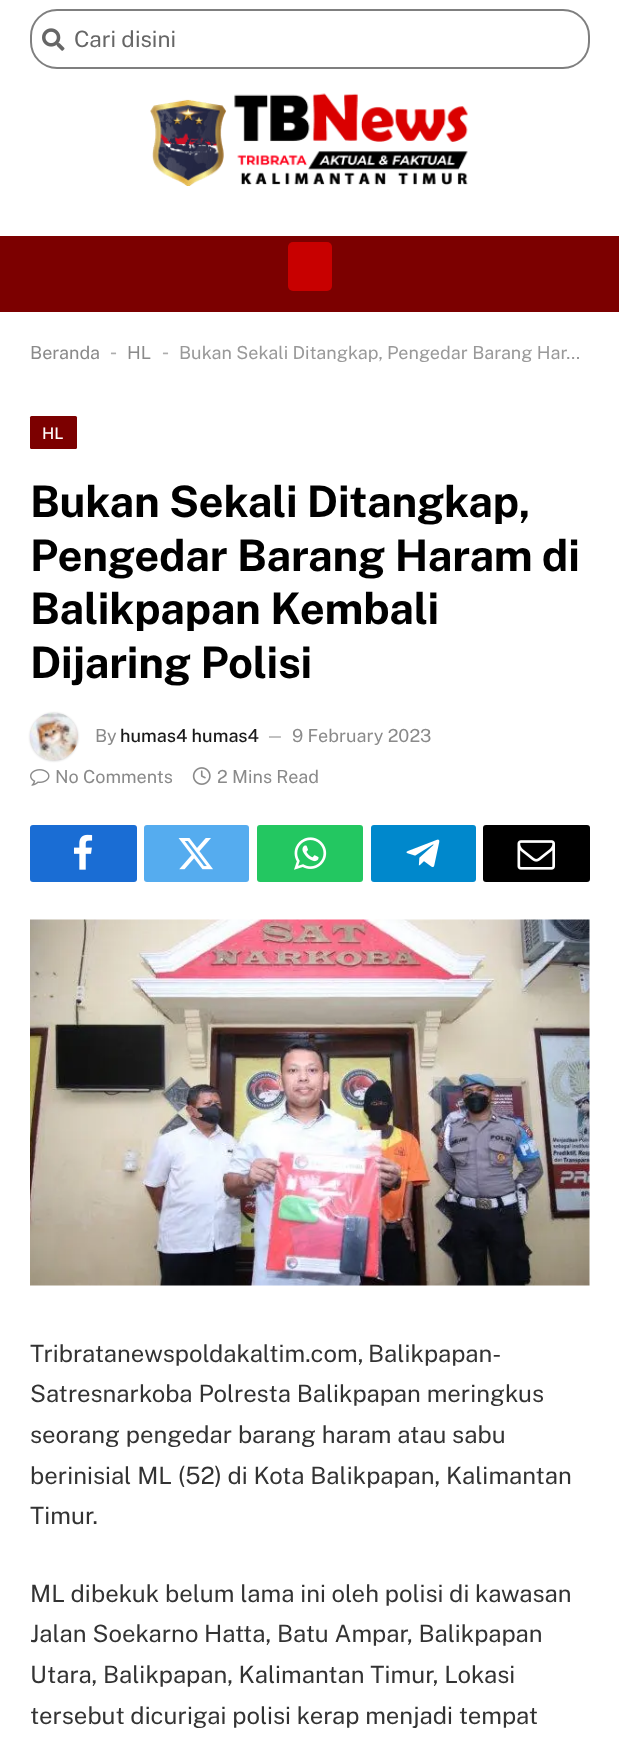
<svg xmlns="http://www.w3.org/2000/svg" width="619" height="1750" viewBox="0 0 619 1750">
  <rect width="100%" height="100%" fill="rgb(255,255,255)"/>
  <rect x="31" y="10" width="558" height="58" rx="26" fill="none" stroke="rgb(127,127,127)" stroke-width="2"/>
  <image x="42" y="28" width="23" height="23" href="pic1.png"/>
  <text x="74" y="47" font-family="Public Sans" font-size="22.5" fill="rgb(102,102,102)">Cari disini</text>
  <image x="150" y="93" width="318" height="93" href="pic2.png"/>
  <rect x="0" y="236" width="619" height="76" fill="rgb(124,0,0)"/>
  <rect x="288" y="242" width="44" height="49" rx="5" fill="rgb(200,0,0)"/>
  <text x="30" y="359" font-family="Public Sans" font-size="18" fill="rgb(138,138,138)">Beranda</text>
  <text x="110" y="359" font-family="Liberation Sans" font-size="21" fill="rgb(173,173,173)">-</text>
  <text x="127" y="359" font-family="Public Sans" font-size="18" fill="rgb(138,138,138)">HL</text>
  <text x="162" y="359" font-family="Liberation Sans" font-size="21" fill="rgb(173,173,173)">-</text>
  <text x="179" y="359" font-family="Public Sans" font-size="18" fill="rgb(153,153,153)">Bukan Sekali Ditangkap, Pengedar Barang Har…</text>
  <rect x="30" y="416" width="47" height="33" rx="1.5" fill="rgb(124,0,0)"/>
  <text x="42" y="439" font-family="Public Sans" font-size="16" font-weight="500" fill="rgb(255,255,255)">HL</text>
  <g font-family="Public Sans" font-size="43.5" font-weight="bold" letter-spacing="-0.25" fill="rgb(0,0,0)">
    <text>
      <tspan x="30" y="517">Bukan Sekali Ditangkap,</tspan>
      <tspan x="30" y="571">Pengedar Barang Haram di</tspan>
      <tspan x="30" y="624">Balikpapan Kembali</tspan>
      <tspan x="30" y="678">Dijaring Polisi</tspan>
    </text>
  </g>
  <rect x="30" y="713" width="48" height="48" rx="24" fill="rgba(0,0,0,0.2)" filter="blur(1px)"/>
  <image x="30" y="712" width="48" height="49" href="pic3.png"/>
  <text x="95" y="742" font-family="Public Sans" font-size="18" fill="rgb(138,138,138)">By</text>
  <text x="120" y="742" font-family="Public Sans" font-size="18" font-weight="500" fill="rgb(25,25,25)">humas4 humas4</text>
  <text x="266" y="741" font-family="Public Sans" font-size="16" fill="rgb(138,138,138)">—</text>
  <text x="292" y="742" font-family="Public Sans" font-size="18" fill="rgb(138,138,138)">9 February 2023</text>
  <image x="30" y="769" width="20" height="17" href="pic4.png"/>
  <text x="55" y="783" font-family="Public Sans" font-size="18" fill="rgb(138,138,138)">No Comments</text>
  <image x="192" y="767" width="19" height="18" href="pic5.png"/>
  <text x="217" y="783" font-family="Public Sans" font-size="18" fill="rgb(138,138,138)">2 Mins Read</text>
  <rect x="30" y="825" width="107" height="57" rx="3" fill="rgb(26,109,212)"/>
  <image x="74" y="834" width="19" height="36" href="pic6.png"/>
  <rect x="144" y="825" width="105" height="57" rx="3" fill="rgb(85,172,239)"/>
  <image x="178" y="838" width="35" height="32" href="pic7.png"/>
  <rect x="257" y="825" width="106" height="57" rx="3" fill="rgb(35,199,97)"/>
  <image x="294" y="837" width="33" height="33" href="pic8.png"/>
  <rect x="371" y="825" width="105" height="57" rx="3" fill="rgb(0,136,204)"/>
  <image x="406" y="839" width="34" height="29" href="pic9.png"/>
  <rect x="483" y="825" width="107" height="57" rx="3" fill="rgb(0,0,0)"/>
  <image x="517" y="840" width="38" height="30" href="pic10.png"/>
  <image x="30" y="919" width="560" height="367" href="pic11.png"/>
  <g font-family="Public Sans" font-size="23.9" fill="rgb(51,51,51)">
    <text>
      <tspan x="30" y="1362" word-spacing="-1">Tribratanewspoldakaltim.com, Balikpapan-</tspan>
      <tspan x="30" y="1402">Satresnarkoba Polresta Balikpapan meringkus</tspan>
      <tspan x="30" y="1443">seorang pengedar barang haram atau sabu</tspan>
      <tspan x="30" y="1484">berinisial ML (52) di Kota Balikpapan, Kalimantan</tspan>
      <tspan x="30" y="1524">Timur.</tspan>
    </text>
    <text>
      <tspan x="30" y="1602">ML dibekuk belum lama ini oleh polisi di kawasan</tspan>
      <tspan x="30" y="1642">Jalan Soekarno Hatta, Batu Ampar, Balikpapan</tspan>
      <tspan x="30" y="1683">Utara, Balikpapan, Kalimantan Timur, Lokasi</tspan>
      <tspan x="30" y="1724">tersebut dicurigai polisi kerap menjadi tempat</tspan>
    </text>
  </g>
</svg>
